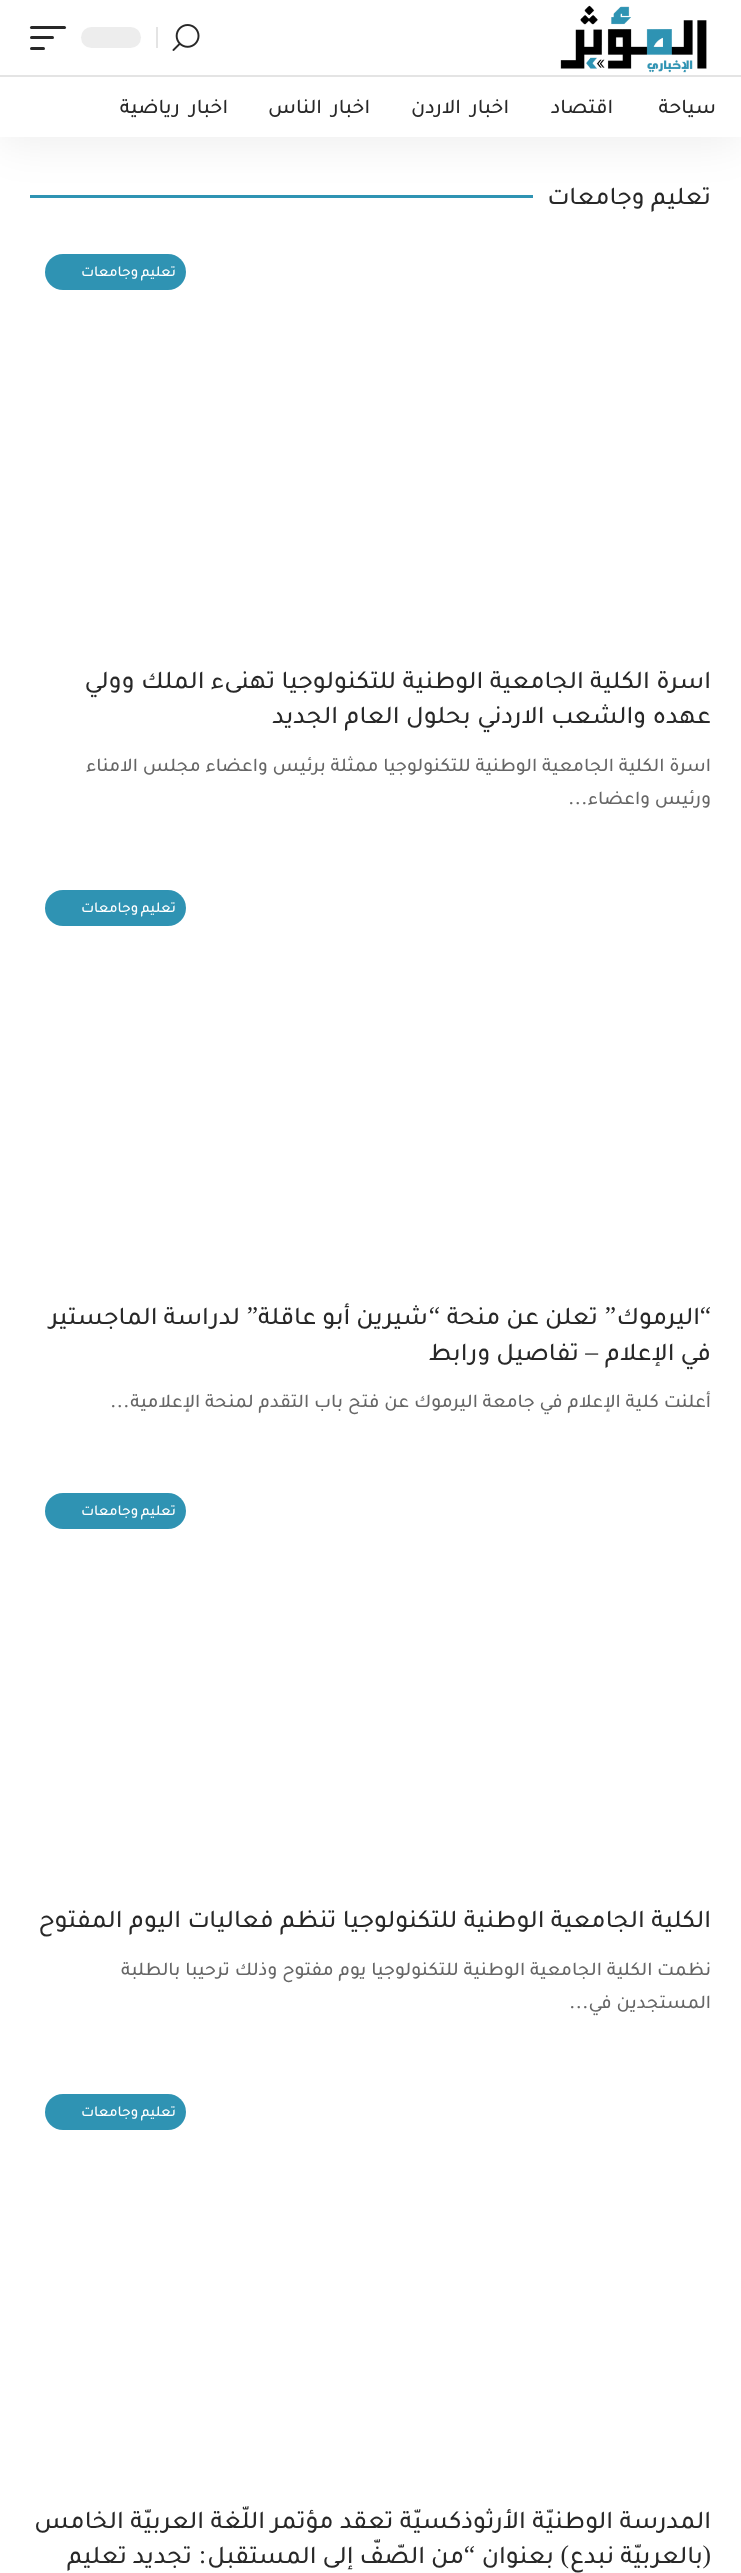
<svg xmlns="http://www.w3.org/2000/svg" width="741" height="2573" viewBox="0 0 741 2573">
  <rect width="100%" height="100%" fill="rgb(255,255,255)"/>
  <rect x="30" y="195" width="503" height="3" fill="rgb(47,147,179)"/>
  <rect x="0" y="6" width="741" height="137" fill="rgba(0,0,0,0.07)" filter="blur(22.5px)"/>
  <rect x="0" y="0" width="741" height="137" fill="rgb(255,255,255)"/>
  <image x="560" y="5" width="147" height="68" href="pic1.png"/>
  <image x="172" y="24" width="28" height="27" href="pic2.png"/>
  <rect x="156" y="27" width="2" height="21" fill="rgb(228,228,228)"/>
  <rect x="81" y="27" width="60" height="21" rx="10.5" fill="rgb(237,237,237)"/>
  <rect x="30" y="26" width="36" height="3" rx="1.5" fill="rgb(40,40,40)"/>
  <rect x="30" y="36" width="24" height="3" rx="1.5" fill="rgb(40,40,40)"/>
  <rect x="30" y="47" width="15" height="3" rx="1.5" fill="rgb(40,40,40)"/>
  <rect x="0" y="75" width="741" height="2" fill="rgb(228,228,228)"/>
  <g font-family="Tajawal" font-size="21" font-weight="500" letter-spacing="-0.5" direction="rtl" fill="rgb(40,40,40)">
    <text x="716" y="113">سياحة</text>
    <text x="613" y="113">اقتصاد</text>
    <text x="509" y="113" word-spacing="5">اخبار الاردن</text>
    <text x="370" y="113" word-spacing="5">اخبار الناس</text>
    <text x="228" y="113" word-spacing="5">اخبار رياضية</text>
  </g>
  <text x="711" y="204" word-spacing="0.5" font-family="Tajawal" font-size="25.5" font-weight="500" direction="rtl" fill="rgb(40,40,40)">تعليم وجامعات</text>
  <rect x="45" y="254" width="141" height="36" rx="18" fill="rgb(47,147,179)"/>
  <text x="176" y="276" word-spacing="-1" font-family="Tajawal" font-size="15" font-weight="500" letter-spacing="1" direction="rtl" fill="rgb(255,255,255)">تعليم وجامعات</text>
  <g font-family="Tajawal" font-size="25.5" font-weight="500" direction="rtl" fill="rgb(40,40,40)">
    <text>
      <tspan x="711" y="688" word-spacing="0.5">اسرة الكلية الجامعية الوطنية للتكنولوجيا تهنىء الملك وولي</tspan>
      <tspan x="711" y="723" word-spacing="0.5">عهده والشعب الاردني بحلول العام الجديد</tspan>
    </text>
  </g>
  <g font-family="Tajawal" font-size="19.5" font-weight="500" direction="rtl" fill="rgb(102,102,102)">
    <text>
      <tspan x="711" y="771" word-spacing="0.25">اسرة الكلية الجامعية الوطنية للتكنولوجيا ممثلة برئيس واعضاء مجلس الامناء</tspan>
      <tspan x="711" y="804" word-spacing="0.25">ورئيس واعضاء</tspan>
    </text>
  </g>
  <text x="568" y="804" font-family="Liberation Serif" font-size="19.5" fill="rgb(102,102,102)">…</text>
  <rect x="45" y="890" width="141" height="36" rx="18" fill="rgb(47,147,179)"/>
  <text x="176" y="912" word-spacing="-1" font-family="Tajawal" font-size="15" font-weight="500" letter-spacing="1" direction="rtl" fill="rgb(255,255,255)">تعليم وجامعات</text>
  <text x="711" y="1324" font-family="Liberation Serif" font-size="25.5" direction="rtl" fill="rgb(40,40,40)">“</text>
  <text x="700" y="1324" font-family="Tajawal" font-size="25.5" font-weight="500" direction="rtl" fill="rgb(40,40,40)">اليرموك</text>
  <text x="616" y="1324" font-family="Liberation Serif" font-size="25.5" direction="rtl" fill="rgb(40,40,40)">”</text>
  <text x="598" y="1324" font-family="Tajawal" font-size="25.5" font-weight="500" direction="rtl" fill="rgb(40,40,40)">تعلن عن منحة</text>
  <text x="440" y="1324" font-family="Liberation Serif" font-size="25.5" direction="rtl" fill="rgb(40,40,40)">“</text>
  <text x="428" y="1324" font-family="Tajawal" font-size="25.5" font-weight="500" direction="rtl" fill="rgb(40,40,40)">شيرين أبو عاقلة</text>
  <text x="258" y="1324" font-family="Liberation Serif" font-size="25.5" direction="rtl" fill="rgb(40,40,40)">”</text>
  <g font-family="Tajawal" font-size="25.5" font-weight="500" direction="rtl" fill="rgb(40,40,40)">
    <text x="240" y="1324">لدراسة الماجستير</text>
    <text x="711" y="1360">في الإعلام</text>
  </g>
  <text x="598" y="1360" font-family="Liberation Serif" font-size="25.5" direction="rtl" fill="rgb(40,40,40)">–</text>
  <text x="579" y="1360" font-family="Tajawal" font-size="25.5" font-weight="500" direction="rtl" fill="rgb(40,40,40)">تفاصيل ورابط</text>
  <text x="711" y="1407" word-spacing="0.25" font-family="Tajawal" font-size="19.5" font-weight="500" direction="rtl" fill="rgb(102,102,102)">أعلنت كلية الإعلام في جامعة اليرموك عن فتح باب التقدم لمنحة الإعلامية</text>
  <text x="110" y="1407" font-family="Liberation Serif" font-size="19.5" fill="rgb(102,102,102)">…</text>
  <rect x="45" y="1493" width="141" height="36" rx="18" fill="rgb(47,147,179)"/>
  <text x="176" y="1515" word-spacing="-1" font-family="Tajawal" font-size="15" font-weight="500" letter-spacing="1" direction="rtl" fill="rgb(255,255,255)">تعليم وجامعات</text>
  <text x="711" y="1927" word-spacing="0.5" font-family="Tajawal" font-size="25.5" font-weight="500" direction="rtl" fill="rgb(40,40,40)">الكلية الجامعية الوطنية للتكنولوجيا تنظم فعاليات اليوم المفتوح</text>
  <g font-family="Tajawal" font-size="19.5" font-weight="500" direction="rtl" fill="rgb(102,102,102)">
    <text>
      <tspan x="711" y="1975" word-spacing="0.25">نظمت الكلية الجامعية الوطنية للتكنولوجيا يوم مفتوح وذلك ترحيبا بالطلبة</tspan>
      <tspan x="711" y="2008" word-spacing="0.25">المستجدين في</tspan>
    </text>
  </g>
  <text x="569" y="2008" font-family="Liberation Serif" font-size="19.5" fill="rgb(102,102,102)">…</text>
  <rect x="45" y="2094" width="141" height="36" rx="18" fill="rgb(47,147,179)"/>
  <text x="176" y="2116" word-spacing="-1" font-family="Tajawal" font-size="15" font-weight="500" letter-spacing="1" direction="rtl" fill="rgb(255,255,255)">تعليم وجامعات</text>
  <text x="711" y="2528" word-spacing="0.5" font-family="Tajawal" font-size="25.5" font-weight="500" direction="rtl" fill="rgb(40,40,40)">المدرسة الوطنيّة الأرثوذكسيّة تعقد مؤتمر اللّغة العربيّة الخامس</text>
  <text x="711" y="2563" font-family="Liberation Serif" font-size="25.5" direction="rtl" fill="rgb(40,40,40)">(</text>
  <text x="703" y="2563" font-family="Tajawal" font-size="25.5" font-weight="500" direction="rtl" fill="rgb(40,40,40)">بالعربيّة نبدع</text>
  <text x="569" y="2563" font-family="Liberation Serif" font-size="25.5" direction="rtl" fill="rgb(40,40,40)">)</text>
  <text x="554" y="2563" font-family="Tajawal" font-size="25.5" font-weight="500" direction="rtl" fill="rgb(40,40,40)">بعنوان</text>
  <text x="475" y="2563" font-family="Liberation Serif" font-size="25.5" direction="rtl" fill="rgb(40,40,40)">“</text>
  <text x="464" y="2563" font-family="Tajawal" font-size="25.5" font-weight="500" direction="rtl" fill="rgb(40,40,40)">من الصّفّ إلى المستقبل</text>
  <text x="206" y="2563" font-family="Liberation Serif" font-size="25.5" direction="rtl" fill="rgb(40,40,40)">:</text>
  <text x="192" y="2563" font-family="Tajawal" font-size="25.5" font-weight="500" direction="rtl" fill="rgb(40,40,40)">تجديد تعليم</text>
</svg>
